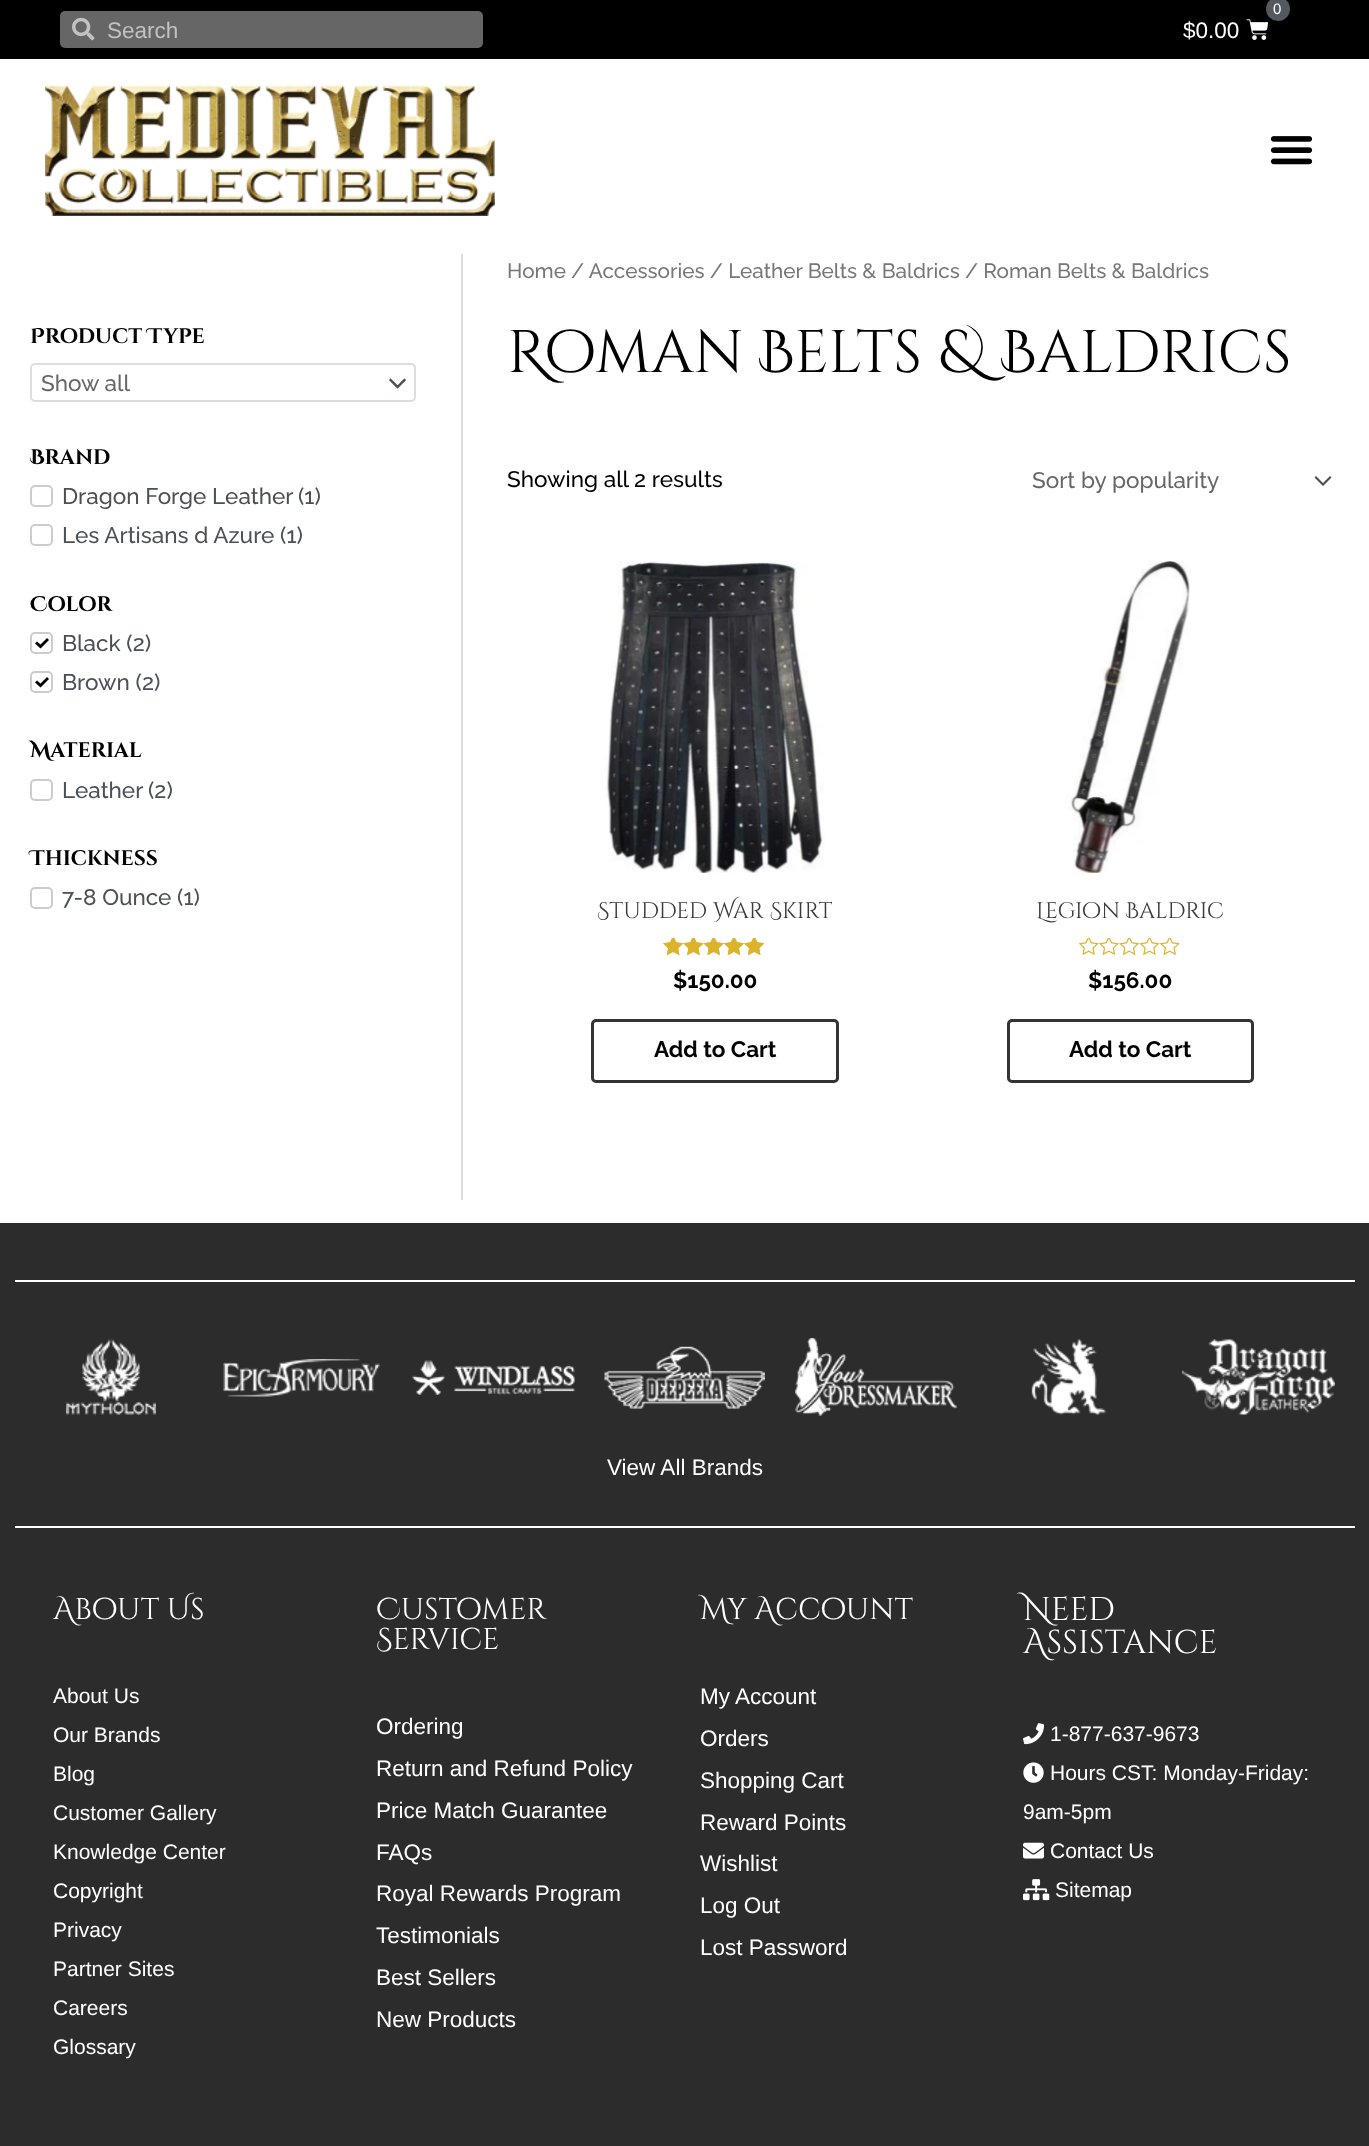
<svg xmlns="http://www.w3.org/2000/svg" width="1369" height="2146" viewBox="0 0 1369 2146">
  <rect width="100%" height="100%" fill="rgb(255,255,255)"/>
  <rect x="0" y="0" width="1369" height="59" fill="rgb(0,0,0)"/>
  <rect x="60" y="11" width="423" height="37" rx="5" fill="rgb(102,102,102)"/>
  <image x="72" y="17" width="23" height="24" href="pic1.png"/>
  <text x="107" y="38" font-family="Liberation Sans" font-size="22.5" fill="rgb(194,194,194)">Search</text>
  <image x="1246" y="19" width="22" height="21" href="pic2.png"/>
  <circle cx="1278" cy="9" r="12" fill="rgb(84,89,95)"/>
  <text x="1273" y="14" font-family="Liberation Sans" font-size="15" fill="rgb(255,255,255)">0</text>
  <text x="1183" y="38" font-family="Liberation Sans" font-size="22.5" fill="rgb(255,255,255)">$0.00</text>
  <image x="45" y="85" width="450" height="131" href="pic3.png"/>
  <image x="1270" y="136" width="43" height="29" href="pic4.png"/>
  <text x="30" y="343" font-family="Cinzel Decorative" font-size="21" font-weight="bold" fill="rgb(0,0,0)">Product Type</text>
  <image x="389" y="378" width="17" height="11" href="pic5.png"/>
  <rect x="31" y="364" width="384" height="37" rx="4" fill="none" stroke="rgb(221,221,221)" stroke-width="2"/>
  <text x="41" y="391" font-family="Raleway" font-size="22.5" font-weight="500" fill="rgb(102,102,102)">Show all</text>
  <text x="30" y="464" font-family="Cinzel Decorative" font-size="21" font-weight="bold" fill="rgb(0,0,0)">Brand</text>
  <rect x="31" y="486" width="21" height="20" rx="4" fill="none" stroke="rgb(204,204,204)" stroke-width="2"/>
  <g font-family="Raleway" font-size="22.5" font-weight="500" fill="rgb(75,79,88)">
    <text x="62" y="504">Dragon Forge Leather</text>
    <text x="298" y="504">(1)</text>
  </g>
  <rect x="31" y="525" width="21" height="20" rx="4" fill="none" stroke="rgb(204,204,204)" stroke-width="2"/>
  <text x="62" y="543" font-family="Raleway" font-size="22.5" font-weight="500" fill="rgb(75,79,88)">Les Artisans d Azure (1)</text>
  <text x="30" y="611" font-family="Cinzel Decorative" font-size="21" font-weight="bold" fill="rgb(0,0,0)">Color</text>
  <rect x="31" y="633" width="21" height="20" rx="4" fill="none" stroke="rgb(204,204,204)" stroke-width="2"/>
  <text x="62" y="651" font-family="Raleway" font-size="22.5" font-weight="500" fill="rgb(75,79,88)">Black (2)</text>
  <path d="M37 641.5L40.5 644.5L47 638L49 640L40.5 648.5L35 643.5Z" fill="rgb(0,0,0)"/>
  <rect x="31" y="672" width="21" height="20" rx="4" fill="none" stroke="rgb(204,204,204)" stroke-width="2"/>
  <text x="62" y="690" font-family="Raleway" font-size="22.5" font-weight="500" fill="rgb(75,79,88)">Brown (2)</text>
  <path d="M37 680.5L40.5 683.5L47 677L49 679L40.5 687.5L35 682.5Z" fill="rgb(0,0,0)"/>
  <text x="30" y="757" font-family="Cinzel Decorative" font-size="21" font-weight="bold" fill="rgb(0,0,0)">Material</text>
  <rect x="31" y="780" width="21" height="20" rx="4" fill="none" stroke="rgb(204,204,204)" stroke-width="2"/>
  <g font-family="Raleway" font-size="22.5" font-weight="500" fill="rgb(75,79,88)">
    <text x="62" y="798">Leather</text>
    <text x="148" y="798">(2)</text>
  </g>
  <text x="30" y="865" font-family="Cinzel Decorative" font-size="21" font-weight="bold" fill="rgb(0,0,0)">Thickness</text>
  <rect x="31" y="888" width="21" height="20" rx="4" fill="none" stroke="rgb(204,204,204)" stroke-width="2"/>
  <text x="62" y="905" font-family="Raleway" font-size="22.5" font-weight="500" fill="rgb(75,79,88)">7-8 Ounce (1)</text>
  <rect x="461" y="254" width="2" height="946" fill="rgb(221,221,221)"/>
  <text x="507" y="278" font-family="Raleway" font-size="20.7" font-weight="500" fill="rgb(119,119,119)">Home / Accessories / Leather Belts &amp; Baldrics / Roman Belts &amp; Baldrics</text>
  <text x="507" y="372" font-family="Cinzel Decorative" font-size="60" fill="rgb(0,0,0)">Roman Belts &amp; Baldrics</text>
  <text x="507" y="487" font-family="Raleway" font-size="22.5" font-weight="500" fill="rgb(0,0,0)">Showing all 2 results</text>
  <path d="M1314.5 477.5L1323 486L1331.5 477.5L1330 476L1323 483L1316 476Z" fill="rgb(75,79,88)"/>
  <text x="1032" y="488" font-family="Raleway" font-size="22.5" font-weight="500" fill="rgb(102,102,102)">Sort by popularity</text>
  <image x="605" y="561" width="220" height="312" href="pic6.png"/>
  <text x="597" y="918" font-family="Cinzel Decorative" font-size="22.5" fill="rgb(58,58,58)">Studded War Skirt</text>
  <image x="663" y="938" width="102" height="18" href="pic7.png"/>
  <image x="663" y="938" width="102" height="18" href="pic8.png"/>
  <text x="673" y="988" font-family="Raleway" font-size="22.5" font-weight="bold" fill="rgb(0,0,0)">$150.00</text>
  <rect x="592.5" y="1020.5" width="245" height="61" rx="3.5" fill="none" stroke="rgb(51,51,51)" stroke-width="3"/>
  <text x="654" y="1057" font-family="Raleway" font-size="22.5" font-weight="bold" fill="rgb(0,0,0)">Add to Cart</text>
  <image x="1066" y="561" width="125" height="312" href="pic9.png"/>
  <text x="1036" y="918" font-family="Cinzel Decorative" font-size="22.5" fill="rgb(58,58,58)">Legion Baldric</text>
  <image x="1079" y="938" width="101" height="18" href="pic10.png"/>
  <text x="1088" y="988" font-family="Raleway" font-size="22.5" font-weight="bold" fill="rgb(0,0,0)">$156.00</text>
  <rect x="1008.5" y="1020.5" width="244" height="61" rx="3.5" fill="none" stroke="rgb(51,51,51)" stroke-width="3"/>
  <text x="1069" y="1057" font-family="Raleway" font-size="22.5" font-weight="bold" fill="rgb(0,0,0)">Add to Cart</text>
  <rect x="0" y="1223" width="1369" height="923" fill="rgb(44,44,44)"/>
  <rect x="15" y="1280" width="1340" height="2" fill="rgb(255,255,255)"/>
  <image x="66" y="1339" width="90" height="76" href="pic11.png"/>
  <image x="223" y="1359" width="157" height="38" href="pic12.png"/>
  <image x="412" y="1360" width="163" height="35" href="pic13.png"/>
  <image x="604" y="1346" width="161" height="63" href="pic14.png"/>
  <image x="795" y="1338" width="162" height="78" href="pic15.png"/>
  <image x="1031" y="1339" width="76" height="76" href="pic16.png"/>
  <image x="1182" y="1339" width="153" height="76" href="pic17.png"/>
  <text x="607" y="1475" font-family="Liberation Sans" font-size="22.5" fill="rgb(255,255,255)">View All Brands</text>
  <rect x="15" y="1526" width="1340" height="2" fill="rgb(255,255,255)"/>
  <text x="53" y="1619" font-family="Cinzel Decorative" font-size="30" fill="rgb(255,255,255)">About Us</text>
  <g font-family="Liberation Sans" font-size="21" fill="rgb(255,255,255)">
    <text>
      <tspan x="53" y="1703">About Us</tspan>
      <tspan x="53" y="1742">Our Brands</tspan>
      <tspan x="53" y="1781">Blog</tspan>
      <tspan x="53" y="1820">Customer Gallery</tspan>
      <tspan x="53" y="1859">Knowledge Center</tspan>
      <tspan x="53" y="1898">Copyright</tspan>
      <tspan x="53" y="1937">Privacy</tspan>
      <tspan x="53" y="1976">Partner Sites</tspan>
      <tspan x="53" y="2015">Careers</tspan>
      <tspan x="53" y="2054">Glossary</tspan>
    </text>
  </g>
  <g font-family="Cinzel Decorative" font-size="30" fill="rgb(255,255,255)">
    <text>
      <tspan x="376" y="1619">Customer</tspan>
      <tspan x="376" y="1649">Service</tspan>
    </text>
  </g>
  <g font-family="Liberation Sans" font-size="22.5" fill="rgb(255,255,255)">
    <text>
      <tspan x="376" y="1734">Ordering</tspan>
      <tspan x="376" y="1776">Return and Refund Policy</tspan>
      <tspan x="376" y="1818">Price Match Guarantee</tspan>
      <tspan x="376" y="1860">FAQs</tspan>
      <tspan x="376" y="1901">Royal Rewards Program</tspan>
      <tspan x="376" y="1943">Testimonials</tspan>
      <tspan x="376" y="1985">Best Sellers</tspan>
      <tspan x="376" y="2027">New Products</tspan>
    </text>
  </g>
  <text x="700" y="1619" font-family="Cinzel Decorative" font-size="30" fill="rgb(255,255,255)">My Account</text>
  <g font-family="Liberation Sans" font-size="22.5" fill="rgb(255,255,255)">
    <text>
      <tspan x="700" y="1704">My Account</tspan>
      <tspan x="700" y="1746">Orders</tspan>
      <tspan x="700" y="1788">Shopping Cart</tspan>
      <tspan x="700" y="1830">Reward Points</tspan>
      <tspan x="700" y="1871">Wishlist</tspan>
      <tspan x="700" y="1913">Log Out</tspan>
      <tspan x="700" y="1955">Lost Password</tspan>
    </text>
  </g>
  <g font-family="Cinzel Decorative" font-size="33" fill="rgb(255,255,255)">
    <text>
      <tspan x="1023" y="1620">Need</tspan>
      <tspan x="1023" y="1653">Assistance</tspan>
    </text>
  </g>
  <image x="1023" y="1723" width="21" height="22" href="pic18.png"/>
  <text x="1050" y="1741" font-family="Liberation Sans" font-size="21" fill="rgb(255,255,255)">1-877-637-9673</text>
  <image x="1023" y="1762" width="21" height="21" href="pic19.png"/>
  <g font-family="Liberation Sans" font-size="21" fill="rgb(255,255,255)">
    <text x="1050" y="1780">Hours CST: Monday-Friday:</text>
    <text x="1023" y="1819">9am-5pm</text>
  </g>
  <image x="1023" y="1842" width="21" height="17" href="pic20.png"/>
  <text x="1050" y="1858" font-family="Liberation Sans" font-size="21" fill="rgb(255,255,255)">Contact Us</text>
  <image x="1023" y="1879" width="27" height="22" href="pic21.png"/>
  <text x="1055" y="1897" font-family="Liberation Sans" font-size="21" fill="rgb(255,255,255)">Sitemap</text>
</svg>
